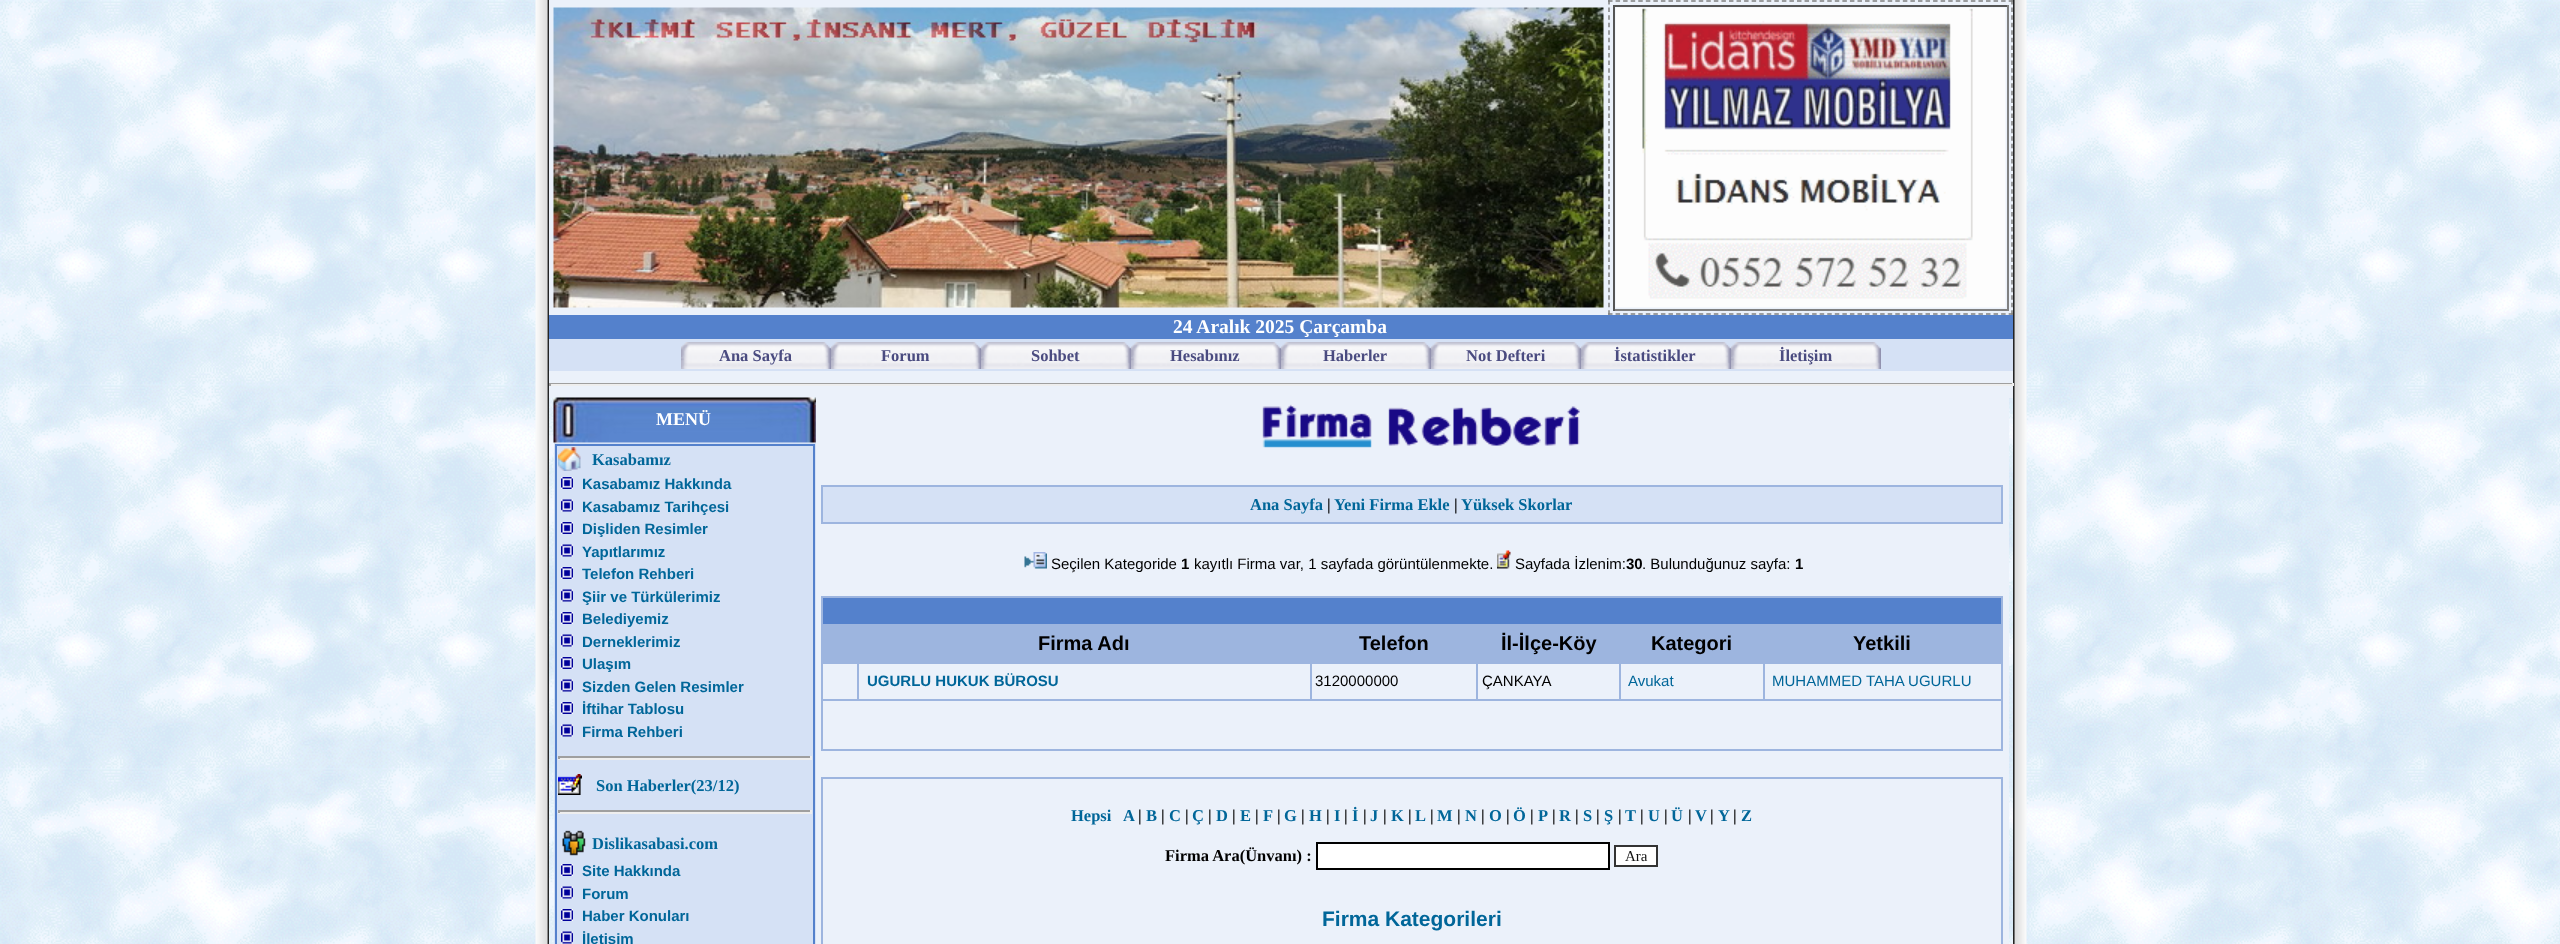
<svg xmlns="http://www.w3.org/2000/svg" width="2560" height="944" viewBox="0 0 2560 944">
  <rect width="100%" height="100%" fill="rgb(255,255,255)"/>
  <image x="0" y="0" width="2560" height="944" href="pic1.png"/>
  <image x="535" y="0" width="14" height="944" href="pic2.png"/>
  <rect x="549" y="0" width="1464" height="398" fill="rgb(235,241,250)"/>
  <image x="553" y="7" width="1051" height="301" href="pic3.png"/>
  <path d="M1608 1H2013" fill="none" stroke="rgb(128,128,128)" stroke-width="1.5" stroke-dasharray="4.5 3.06"/>
  <path d="M2012 0V315" fill="none" stroke="rgb(128,128,128)" stroke-width="1.5" stroke-dasharray="4.5 3.07"/>
  <path d="M1608 314H2013" fill="none" stroke="rgb(128,128,128)" stroke-width="1.5" stroke-dasharray="4.5 3.06"/>
  <path d="M1609 0V315" fill="none" stroke="rgb(128,128,128)" stroke-width="1.5" stroke-dasharray="4.5 3.07"/>
  <rect x="1613" y="5" width="396" height="2" fill="rgb(85,85,85)"/>
  <rect x="2007" y="5" width="2" height="306" fill="rgb(128,128,128)"/>
  <rect x="1613" y="309" width="396" height="2" fill="rgb(128,128,128)"/>
  <rect x="1613" y="5" width="2" height="306" fill="rgb(85,85,85)"/>
  <image x="1615" y="7" width="391" height="301" href="pic4.png"/>
  <rect x="549" y="315" width="1464" height="24" fill="rgb(84,129,204)"/>
  <text x="1173" y="333" font-family="Liberation Serif" font-size="19.5" font-weight="bold" fill="rgb(255,255,255)">24 Aralık 2025 Çarçamba</text>
  <rect x="549" y="339" width="1464" height="32" fill="rgb(213,225,245)"/>
  <image x="681" y="342" width="150" height="27" href="pic5.png"/>
  <text x="719" y="361" font-family="Liberation Serif" font-size="16.5" font-weight="bold" fill="rgb(74,75,128)">Ana Sayfa</text>
  <image x="831" y="342" width="150" height="27" href="pic6.png"/>
  <text x="881" y="361" font-family="Liberation Serif" font-size="16.5" font-weight="bold" fill="rgb(74,75,128)">Forum</text>
  <image x="981" y="342" width="150" height="27" href="pic6.png"/>
  <text x="1031" y="361" font-family="Liberation Serif" font-size="16.5" font-weight="bold" fill="rgb(74,75,128)">Sohbet</text>
  <image x="1131" y="342" width="150" height="27" href="pic7.png"/>
  <text x="1170" y="361" font-family="Liberation Serif" font-size="16.5" font-weight="bold" fill="rgb(74,75,128)">Hesabınız</text>
  <image x="1281" y="342" width="150" height="27" href="pic6.png"/>
  <text x="1323" y="361" font-family="Liberation Serif" font-size="16.5" font-weight="bold" fill="rgb(74,75,128)">Haberler</text>
  <image x="1431" y="342" width="150" height="27" href="pic8.png"/>
  <text x="1466" y="361" font-family="Liberation Serif" font-size="16.5" font-weight="bold" fill="rgb(74,75,128)">Not Defteri</text>
  <image x="1581" y="342" width="150" height="27" href="pic6.png"/>
  <text x="1614" y="361" font-family="Liberation Serif" font-size="16.5" font-weight="bold" fill="rgb(74,75,128)">İstatistikler</text>
  <image x="1731" y="342" width="150" height="27" href="pic6.png"/>
  <text x="1779" y="361" font-family="Liberation Serif" font-size="16.5" font-weight="bold" fill="rgb(74,75,128)">İletişim</text>
  <rect x="549" y="383" width="1464" height="1" fill="rgb(159,159,159)"/>
  <image x="2013" y="0" width="14" height="944" href="pic18.png"/>
  <rect x="2012" y="383" width="2" height="3" fill="rgb(238,238,238)"/>
  <rect x="549" y="384" width="1464" height="2" fill="rgb(238,238,238)"/>
  <rect x="549" y="383" width="2" height="3" fill="rgb(159,159,159)"/>
  <rect x="554" y="398" width="1455" height="546" fill="rgb(235,241,250)"/>
  <image x="553" y="397" width="263" height="46" href="pic9.png"/>
  <text x="656" y="425" font-family="Liberation Serif" font-size="18" font-weight="bold" fill="rgb(255,255,255)">MENÜ</text>
  <rect x="554" y="443" width="262" height="501" fill="rgb(213,225,245)"/>
  <rect x="555" y="444" width="260" height="2" fill="rgb(84,129,204)"/>
  <rect x="813" y="444" width="2" height="500" fill="rgb(84,129,204)"/>
  <rect x="555" y="444" width="2" height="500" fill="rgb(84,129,204)"/>
  <image x="558" y="447" width="23" height="24" href="pic10.png"/>
  <text x="592" y="465" font-family="Liberation Serif" font-size="16.5" font-weight="bold" fill="rgb(0,102,153)">Kasabamız</text>
  <image x="561" y="477" width="12" height="12" href="pic11.png"/>
  <text x="582" y="489" font-family="Liberation Sans" font-size="15" font-weight="bold" fill="rgb(0,102,153)">Kasabamız Hakkında</text>
  <image x="561" y="499" width="12" height="13" href="pic12.png"/>
  <text x="582" y="512" font-family="Liberation Sans" font-size="15" font-weight="bold" fill="rgb(0,102,153)">Kasabamız Tarihçesi</text>
  <image x="561" y="522" width="12" height="12" href="pic11.png"/>
  <text x="582" y="534" font-family="Liberation Sans" font-size="15" font-weight="bold" fill="rgb(0,102,153)">Dişliden Resimler</text>
  <image x="561" y="544" width="12" height="13" href="pic12.png"/>
  <text x="582" y="557" font-family="Liberation Sans" font-size="15" font-weight="bold" fill="rgb(0,102,153)">Yapıtlarımız</text>
  <image x="561" y="567" width="12" height="12" href="pic11.png"/>
  <text x="582" y="579" font-family="Liberation Sans" font-size="15" font-weight="bold" fill="rgb(0,102,153)">Telefon Rehberi</text>
  <image x="561" y="589" width="12" height="13" href="pic12.png"/>
  <text x="582" y="602" font-family="Liberation Sans" font-size="15" font-weight="bold" fill="rgb(0,102,153)">Şiir ve Türkülerimiz</text>
  <image x="561" y="612" width="12" height="12" href="pic11.png"/>
  <text x="582" y="624" font-family="Liberation Sans" font-size="15" font-weight="bold" fill="rgb(0,102,153)">Belediyemiz</text>
  <image x="561" y="634" width="12" height="13" href="pic12.png"/>
  <text x="582" y="647" font-family="Liberation Sans" font-size="15" font-weight="bold" fill="rgb(0,102,153)">Derneklerimiz</text>
  <image x="561" y="657" width="12" height="12" href="pic11.png"/>
  <text x="582" y="669" font-family="Liberation Sans" font-size="15" font-weight="bold" fill="rgb(0,102,153)">Ulaşım</text>
  <image x="561" y="679" width="12" height="13" href="pic12.png"/>
  <text x="582" y="692" font-family="Liberation Sans" font-size="15" font-weight="bold" fill="rgb(0,102,153)">Sizden Gelen Resimler</text>
  <image x="561" y="702" width="12" height="12" href="pic11.png"/>
  <text x="582" y="714" font-family="Liberation Sans" font-size="15" font-weight="bold" fill="rgb(0,102,153)">İftihar Tablosu</text>
  <image x="561" y="724" width="12" height="13" href="pic12.png"/>
  <text x="582" y="737" font-family="Liberation Sans" font-size="15" font-weight="bold" fill="rgb(0,102,153)">Firma Rehberi</text>
  <rect x="558" y="756" width="254" height="2" fill="rgb(159,159,159)"/>
  <rect x="810" y="756" width="2" height="3" fill="rgb(238,238,238)"/>
  <rect x="558" y="758" width="254" height="2" fill="rgb(238,238,238)"/>
  <rect x="558" y="756" width="2" height="3" fill="rgb(159,159,159)"/>
  <image x="558" y="774" width="24" height="21" href="pic13.png"/>
  <text x="596" y="791" font-family="Liberation Serif" font-size="16.5" font-weight="bold" fill="rgb(0,102,153)">Son Haberler(23/12)</text>
  <rect x="558" y="810" width="254" height="2" fill="rgb(159,159,159)"/>
  <rect x="810" y="810" width="2" height="3" fill="rgb(238,238,238)"/>
  <rect x="558" y="812" width="254" height="2" fill="rgb(238,238,238)"/>
  <rect x="558" y="810" width="2" height="3" fill="rgb(159,159,159)"/>
  <image x="562" y="830" width="24" height="26" href="pic14.png"/>
  <text x="592" y="849" font-family="Liberation Serif" font-size="16.5" font-weight="bold" fill="rgb(0,102,153)">Dislikasabasi.com</text>
  <image x="561" y="864" width="12" height="12" href="pic11.png"/>
  <text x="582" y="876" font-family="Liberation Sans" font-size="15" font-weight="bold" fill="rgb(0,102,153)">Site Hakkında</text>
  <image x="561" y="886" width="12" height="13" href="pic12.png"/>
  <text x="582" y="899" font-family="Liberation Sans" font-size="15" font-weight="bold" fill="rgb(0,102,153)">Forum</text>
  <image x="561" y="909" width="12" height="12" href="pic11.png"/>
  <text x="582" y="921" font-family="Liberation Sans" font-size="15" font-weight="bold" fill="rgb(0,102,153)">Haber Konuları</text>
  <image x="561" y="931" width="12" height="13" href="pic12.png"/>
  <text x="582" y="944" font-family="Liberation Sans" font-size="15" font-weight="bold" fill="rgb(0,102,153)">İletişim</text>
  <image x="1262" y="404" width="318" height="44" href="pic15.png"/>
  <rect x="821" y="485" width="1182" height="2" fill="rgb(157,181,223)"/>
  <rect x="2001" y="485" width="2" height="39" fill="rgb(157,181,223)"/>
  <rect x="821" y="522" width="1182" height="2" fill="rgb(157,181,223)"/>
  <rect x="821" y="485" width="2" height="39" fill="rgb(157,181,223)"/>
  <rect x="823" y="487" width="1178" height="35" fill="rgb(213,225,245)"/>
  <text x="1250" y="510" font-family="Liberation Serif" font-size="16.5" font-weight="bold" fill="rgb(0,102,153)">Ana Sayfa</text>
  <text x="1327" y="510" font-family="Liberation Serif" font-size="16.5" font-weight="bold" fill="rgb(0,0,0)">|</text>
  <text x="1334" y="510" font-family="Liberation Serif" font-size="16.5" font-weight="bold" fill="rgb(0,102,153)">Yeni Firma Ekle</text>
  <text x="1454" y="510" font-family="Liberation Serif" font-size="16.5" font-weight="bold" fill="rgb(0,0,0)">|</text>
  <text x="1461" y="510" font-family="Liberation Serif" font-size="16.5" font-weight="bold" fill="rgb(0,102,153)">Yüksek Skorlar</text>
  <image x="1024" y="552" width="23" height="17" href="pic16.png"/>
  <text x="1051" y="569" font-family="Liberation Sans" font-size="15" fill="rgb(0,0,0)">Seçilen Kategoride</text>
  <text x="1181" y="569" font-family="Liberation Sans" font-size="15" font-weight="bold" fill="rgb(0,0,0)">1</text>
  <text x="1194" y="569" font-family="Liberation Sans" font-size="15" fill="rgb(0,0,0)">kayıtlı Firma var, 1 sayfada görüntülenmekte.</text>
  <image x="1497" y="550" width="14" height="19" href="pic17.png"/>
  <text x="1515" y="569" font-family="Liberation Sans" font-size="15" fill="rgb(0,0,0)">Sayfada İzlenim:</text>
  <text x="1626" y="569" font-family="Liberation Sans" font-size="15" font-weight="bold" fill="rgb(0,0,0)">30</text>
  <text x="1642" y="569" font-family="Liberation Sans" font-size="15" fill="rgb(0,0,0)">. Bulunduğunuz sayfa:</text>
  <text x="1795" y="569" font-family="Liberation Sans" font-size="15" font-weight="bold" fill="rgb(0,0,0)">1</text>
  <rect x="821" y="596" width="1182" height="2" fill="rgb(157,181,223)"/>
  <rect x="2001" y="596" width="2" height="154" fill="rgb(157,181,223)"/>
  <rect x="821" y="749" width="1182" height="2" fill="rgb(157,181,223)"/>
  <rect x="821" y="596" width="2" height="154" fill="rgb(157,181,223)"/>
  <rect x="823" y="598" width="1178" height="26" fill="rgb(84,129,204)"/>
  <rect x="823" y="626" width="1178" height="36" fill="rgb(157,181,223)"/>
  <g font-family="Liberation Sans" font-size="20" font-weight="bold" fill="rgb(0,0,0)">
    <text x="1038" y="650">Firma Adı</text>
    <text x="1359" y="650">Telefon</text>
    <text x="1501" y="650">İl-İlçe-Köy</text>
    <text x="1651" y="650">Kategori</text>
  </g>
  <rect x="821" y="624" width="1182" height="2" fill="rgb(157,181,223)"/>
  <text x="1853" y="650" font-family="Liberation Sans" font-size="20" font-weight="bold" fill="rgb(0,0,0)">Yetkili</text>
  <rect x="1763" y="662" width="240" height="2" fill="rgb(157,181,223)"/>
  <rect x="821" y="699" width="1182" height="2" fill="rgb(157,181,223)"/>
  <rect x="1763" y="662" width="2" height="39" fill="rgb(157,181,223)"/>
  <rect x="1619" y="662" width="145" height="2" fill="rgb(157,181,223)"/>
  <rect x="1619" y="662" width="2" height="39" fill="rgb(157,181,223)"/>
  <rect x="1476" y="662" width="144" height="2" fill="rgb(157,181,223)"/>
  <rect x="1476" y="662" width="2" height="39" fill="rgb(157,181,223)"/>
  <rect x="1310" y="662" width="168" height="2" fill="rgb(157,181,223)"/>
  <rect x="1310" y="662" width="2" height="39" fill="rgb(157,181,223)"/>
  <rect x="857" y="662" width="454" height="2" fill="rgb(157,181,223)"/>
  <rect x="857" y="662" width="2" height="39" fill="rgb(157,181,223)"/>
  <rect x="821" y="662" width="37" height="2" fill="rgb(157,181,223)"/>
  <text x="867" y="686" font-family="Liberation Sans" font-size="15" font-weight="bold" fill="rgb(0,102,153)">UGURLU HUKUK BÜROSU</text>
  <g font-family="Liberation Sans" font-size="15" fill="rgb(0,0,0)">
    <text x="1315" y="686">3120000000</text>
    <text x="1482" y="686">ÇANKAYA</text>
  </g>
  <g font-family="Liberation Sans" font-size="15" fill="rgb(0,102,153)">
    <text x="1628" y="686">Avukat</text>
    <text x="1772" y="686">MUHAMMED TAHA UGURLU</text>
  </g>
  <rect x="821" y="777" width="1182" height="2" fill="rgb(157,181,223)"/>
  <rect x="2001" y="777" width="2" height="167" fill="rgb(157,181,223)"/>
  <rect x="821" y="777" width="2" height="167" fill="rgb(157,181,223)"/>
  <g font-family="Liberation Serif" font-size="16.5" font-weight="bold" fill="rgb(0,102,153)">
    <text x="1071" y="821">Hepsi</text>
    <text x="1123" y="821">A</text>
  </g>
  <text x="1138" y="821" font-family="Liberation Serif" font-size="16.5" font-weight="bold" fill="rgb(0,0,0)">|</text>
  <text x="1146" y="821" font-family="Liberation Serif" font-size="16.5" font-weight="bold" fill="rgb(0,102,153)">B</text>
  <text x="1161" y="821" font-family="Liberation Serif" font-size="16.5" font-weight="bold" fill="rgb(0,0,0)">|</text>
  <text x="1169" y="821" font-family="Liberation Serif" font-size="16.5" font-weight="bold" fill="rgb(0,102,153)">C</text>
  <text x="1185" y="821" font-family="Liberation Serif" font-size="16.5" font-weight="bold" fill="rgb(0,0,0)">|</text>
  <text x="1192" y="821" font-family="Liberation Serif" font-size="16.5" font-weight="bold" fill="rgb(0,102,153)">Ç</text>
  <text x="1208" y="821" font-family="Liberation Serif" font-size="16.5" font-weight="bold" fill="rgb(0,0,0)">|</text>
  <text x="1216" y="821" font-family="Liberation Serif" font-size="16.5" font-weight="bold" fill="rgb(0,102,153)">D</text>
  <text x="1232" y="821" font-family="Liberation Serif" font-size="16.5" font-weight="bold" fill="rgb(0,0,0)">|</text>
  <text x="1240" y="821" font-family="Liberation Serif" font-size="16.5" font-weight="bold" fill="rgb(0,102,153)">E</text>
  <text x="1255" y="821" font-family="Liberation Serif" font-size="16.5" font-weight="bold" fill="rgb(0,0,0)">|</text>
  <text x="1263" y="821" font-family="Liberation Serif" font-size="16.5" font-weight="bold" fill="rgb(0,102,153)">F</text>
  <text x="1277" y="821" font-family="Liberation Serif" font-size="16.5" font-weight="bold" fill="rgb(0,0,0)">|</text>
  <text x="1284" y="821" font-family="Liberation Serif" font-size="16.5" font-weight="bold" fill="rgb(0,102,153)">G</text>
  <text x="1301" y="821" font-family="Liberation Serif" font-size="16.5" font-weight="bold" fill="rgb(0,0,0)">|</text>
  <text x="1309" y="821" font-family="Liberation Serif" font-size="16.5" font-weight="bold" fill="rgb(0,102,153)">H</text>
  <text x="1326" y="821" font-family="Liberation Serif" font-size="16.5" font-weight="bold" fill="rgb(0,0,0)">|</text>
  <text x="1334" y="821" font-family="Liberation Serif" font-size="16.5" font-weight="bold" fill="rgb(0,102,153)">I</text>
  <text x="1344" y="821" font-family="Liberation Serif" font-size="16.5" font-weight="bold" fill="rgb(0,0,0)">|</text>
  <text x="1352" y="821" font-family="Liberation Serif" font-size="16.5" font-weight="bold" fill="rgb(0,102,153)">İ</text>
  <text x="1363" y="821" font-family="Liberation Serif" font-size="16.5" font-weight="bold" fill="rgb(0,0,0)">|</text>
  <text x="1370" y="821" font-family="Liberation Serif" font-size="16.5" font-weight="bold" fill="rgb(0,102,153)">J</text>
  <text x="1383" y="821" font-family="Liberation Serif" font-size="16.5" font-weight="bold" fill="rgb(0,0,0)">|</text>
  <text x="1391" y="821" font-family="Liberation Serif" font-size="16.5" font-weight="bold" fill="rgb(0,102,153)">K</text>
  <text x="1408" y="821" font-family="Liberation Serif" font-size="16.5" font-weight="bold" fill="rgb(0,0,0)">|</text>
  <text x="1415" y="821" font-family="Liberation Serif" font-size="16.5" font-weight="bold" fill="rgb(0,102,153)">L</text>
  <text x="1430" y="821" font-family="Liberation Serif" font-size="16.5" font-weight="bold" fill="rgb(0,0,0)">|</text>
  <text x="1437" y="821" font-family="Liberation Serif" font-size="16.5" font-weight="bold" fill="rgb(0,102,153)">M</text>
  <text x="1457" y="821" font-family="Liberation Serif" font-size="16.5" font-weight="bold" fill="rgb(0,0,0)">|</text>
  <text x="1465" y="821" font-family="Liberation Serif" font-size="16.5" font-weight="bold" fill="rgb(0,102,153)">N</text>
  <text x="1481" y="821" font-family="Liberation Serif" font-size="16.5" font-weight="bold" fill="rgb(0,0,0)">|</text>
  <text x="1489" y="821" font-family="Liberation Serif" font-size="16.5" font-weight="bold" fill="rgb(0,102,153)">O</text>
  <text x="1506" y="821" font-family="Liberation Serif" font-size="16.5" font-weight="bold" fill="rgb(0,0,0)">|</text>
  <text x="1513" y="821" font-family="Liberation Serif" font-size="16.5" font-weight="bold" fill="rgb(0,102,153)">Ö</text>
  <text x="1530" y="821" font-family="Liberation Serif" font-size="16.5" font-weight="bold" fill="rgb(0,0,0)">|</text>
  <text x="1538" y="821" font-family="Liberation Serif" font-size="16.5" font-weight="bold" fill="rgb(0,102,153)">P</text>
  <text x="1552" y="821" font-family="Liberation Serif" font-size="16.5" font-weight="bold" fill="rgb(0,0,0)">|</text>
  <text x="1559" y="821" font-family="Liberation Serif" font-size="16.5" font-weight="bold" fill="rgb(0,102,153)">R</text>
  <text x="1575" y="821" font-family="Liberation Serif" font-size="16.5" font-weight="bold" fill="rgb(0,0,0)">|</text>
  <text x="1583" y="821" font-family="Liberation Serif" font-size="16.5" font-weight="bold" fill="rgb(0,102,153)">S</text>
  <text x="1596" y="821" font-family="Liberation Serif" font-size="16.5" font-weight="bold" fill="rgb(0,0,0)">|</text>
  <text x="1604" y="821" font-family="Liberation Serif" font-size="16.5" font-weight="bold" fill="rgb(0,102,153)">Ş</text>
  <text x="1618" y="821" font-family="Liberation Serif" font-size="16.5" font-weight="bold" fill="rgb(0,0,0)">|</text>
  <text x="1625" y="821" font-family="Liberation Serif" font-size="16.5" font-weight="bold" fill="rgb(0,102,153)">T</text>
  <text x="1640" y="821" font-family="Liberation Serif" font-size="16.5" font-weight="bold" fill="rgb(0,0,0)">|</text>
  <text x="1648" y="821" font-family="Liberation Serif" font-size="16.5" font-weight="bold" fill="rgb(0,102,153)">U</text>
  <text x="1664" y="821" font-family="Liberation Serif" font-size="16.5" font-weight="bold" fill="rgb(0,0,0)">|</text>
  <text x="1671" y="821" font-family="Liberation Serif" font-size="16.5" font-weight="bold" fill="rgb(0,102,153)">Ü</text>
  <text x="1688" y="821" font-family="Liberation Serif" font-size="16.5" font-weight="bold" fill="rgb(0,0,0)">|</text>
  <text x="1695" y="821" font-family="Liberation Serif" font-size="16.5" font-weight="bold" fill="rgb(0,102,153)">V</text>
  <text x="1710" y="821" font-family="Liberation Serif" font-size="16.5" font-weight="bold" fill="rgb(0,0,0)">|</text>
  <text x="1718" y="821" font-family="Liberation Serif" font-size="16.5" font-weight="bold" fill="rgb(0,102,153)">Y</text>
  <text x="1733" y="821" font-family="Liberation Serif" font-size="16.5" font-weight="bold" fill="rgb(0,0,0)">|</text>
  <text x="1741" y="821" font-family="Liberation Serif" font-size="16.5" font-weight="bold" fill="rgb(0,102,153)">Z</text>
  <text x="1165" y="861" font-family="Liberation Serif" font-size="16.5" font-weight="bold" fill="rgb(0,0,0)">Firma Ara(Ünvanı) :</text>
  <rect x="1317" y="843" width="292" height="26" fill="rgb(255,255,255)" stroke="rgb(0,0,0)" stroke-width="2"/>
  <rect x="1615" y="846" width="42" height="20" fill="rgb(255,255,255)" stroke="rgb(51,51,51)" stroke-width="2"/>
  <text x="1625" y="861" font-family="Liberation Serif" font-size="15" fill="rgb(17,17,17)">Ara</text>
  <text x="1322" y="926" font-family="Liberation Sans" font-size="21" font-weight="bold" fill="rgb(0,102,153)">Firma Kategorileri</text>
</svg>
